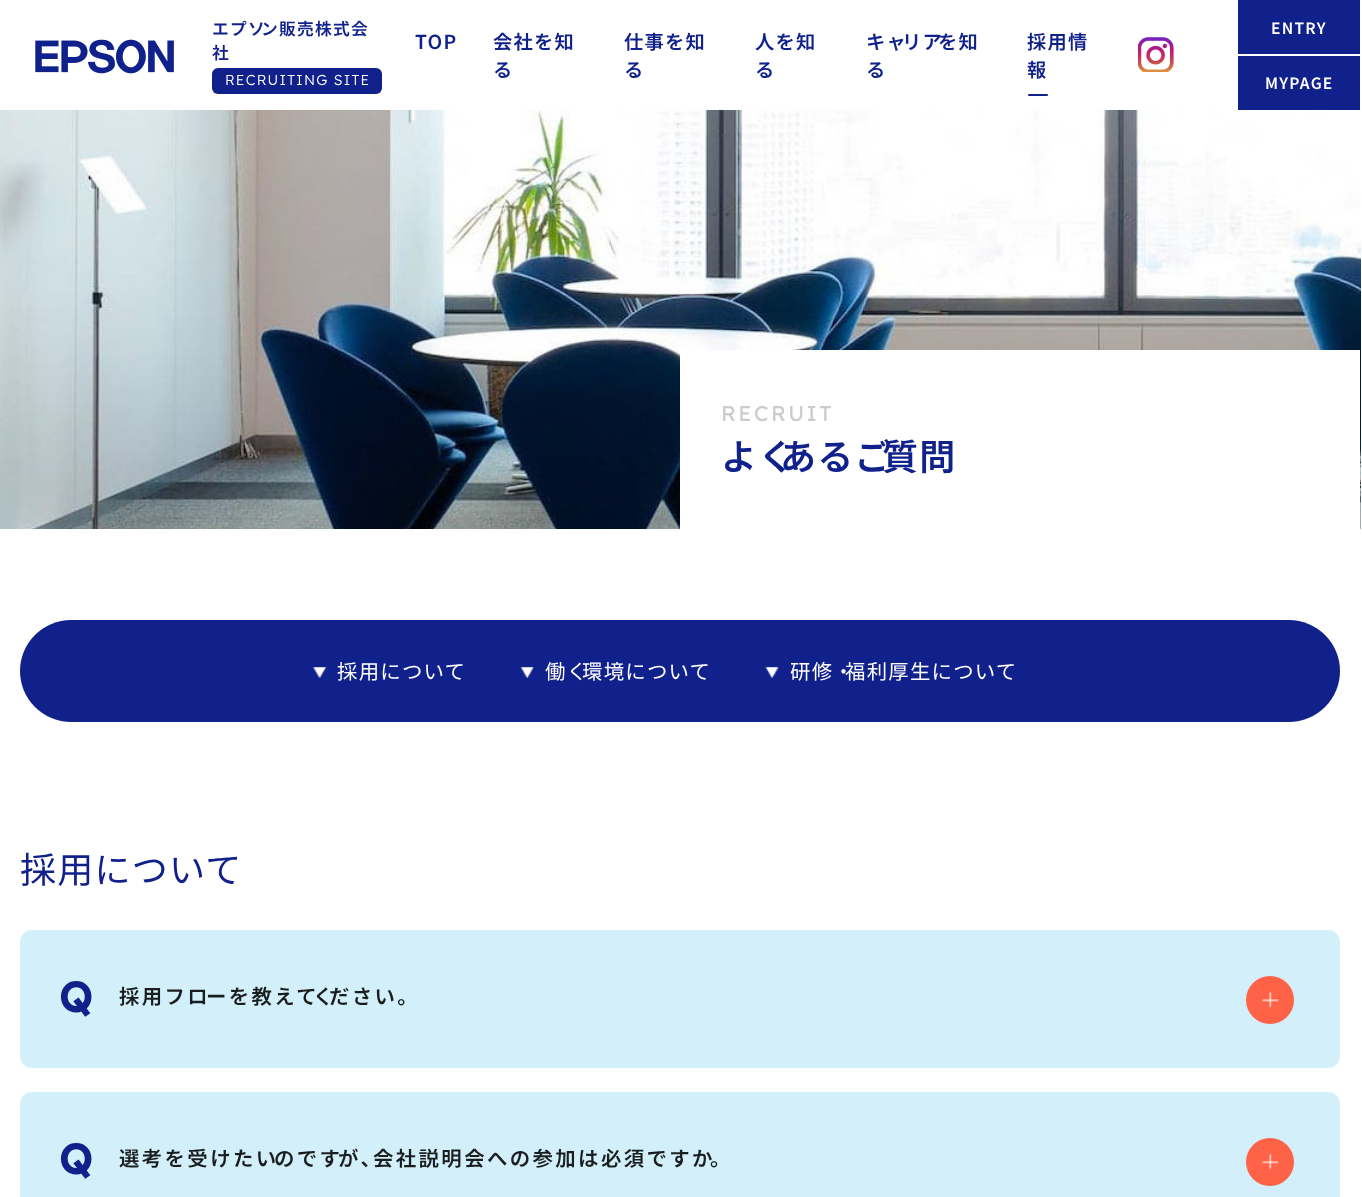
<svg xmlns="http://www.w3.org/2000/svg" width="1362" height="1197" viewBox="0 0 1362 1197">
  <rect width="100%" height="100%" fill="rgb(255,255,255)"/>
  <image x="0" y="109" width="1361" height="420" href="pic3.png"/>
  <rect x="0" y="109" width="1143" height="1" fill="rgba(255,255,255,0.98)"/>
  <image x="35" y="39" width="139" height="35" href="pic1.png"/>
  <g font-family="Noto Sans JP" font-size="16.75" font-weight="600" letter-spacing="1.25" fill="rgb(16,33,139)">
    <text x="212" y="35">エプソ</text>
    <text x="261" y="35">ン販売株式会</text>
    <text x="212" y="59">社</text>
  </g>
  <rect x="212" y="68" width="170" height="26" rx="6" fill="rgb(16,33,139)"/>
  <text x="225" y="85" font-family="Readex Pro" font-size="14.4" font-weight="300" letter-spacing="1.25" fill="rgb(255,255,255)">RECRUITING SITE</text>
  <g font-family="Noto Sans JP" font-size="19.25" font-weight="600" letter-spacing="1.25" fill="rgb(16,33,139)">
    <text x="415" y="49">TOP</text>
    <text>
      <tspan x="493" y="49">会社を知</tspan>
      <tspan x="493" y="77">る</tspan>
    </text>
    <text>
      <tspan x="624" y="49">仕事を知</tspan>
      <tspan x="624" y="77">る</tspan>
    </text>
    <text>
      <tspan x="755" y="49">人を知</tspan>
      <tspan x="755" y="77">る</tspan>
    </text>
    <text x="866" y="49">キャ</text>
    <text x="902" y="49">リア</text>
    <text x="938" y="49">を知</text>
    <text x="866" y="77">る</text>
    <text>
      <tspan x="1027" y="49">採用情</tspan>
      <tspan x="1027" y="77">報</tspan>
    </text>
  </g>
  <rect x="1028" y="94" width="20" height="2" rx="1" fill="rgb(16,33,139)"/>
  <rect x="1238" y="0" width="122" height="54" fill="rgb(16,33,139)"/>
  <text x="1271" y="34" font-family="Noto Sans JP" font-size="15.5" font-weight="600" letter-spacing="1.25" fill="rgb(255,255,255)">ENTRY</text>
  <rect x="1238" y="56" width="122" height="54" fill="rgb(16,33,139)"/>
  <text x="1265" y="89" font-family="Noto Sans JP" font-size="15.5" font-weight="600" letter-spacing="1.25" fill="rgb(255,255,255)">MYPAGE</text>
  <image x="1138" y="37" width="36" height="35" href="pic2.png"/>
  <rect x="680" y="350" width="680" height="179" fill="rgb(255,255,255)"/>
  <text x="721" y="421" font-family="Readex Pro" font-size="21.5" letter-spacing="2.4" fill="rgb(204,204,204)">RECRUIT</text>
  <text x="721" y="470" font-family="Noto Sans JP" font-size="36" font-weight="600" letter-spacing="1.25" fill="rgb(16,33,139)">よく</text>
  <text x="780" y="470" font-family="Noto Sans JP" font-size="36" font-weight="600" letter-spacing="1.25" fill="rgb(16,33,139)">あるご</text>
  <text x="882" y="470" font-family="Noto Sans JP" font-size="36" font-weight="600" letter-spacing="1.25" fill="rgb(16,33,139)">質問</text>
  <rect x="20" y="620" width="1320" height="102" rx="51" fill="rgb(16,33,139)"/>
  <image x="313" y="667" width="14" height="11" href="pic4.png"/>
  <text x="337" y="679" font-family="Noto Sans JP" font-size="20.4" letter-spacing="1.25" fill="rgb(255,255,255)">採用について</text>
  <image x="520" y="667" width="14" height="11" href="pic5.png"/>
  <text x="545" y="679" font-family="Noto Sans JP" font-size="20.4" letter-spacing="1.25" fill="rgb(255,255,255)">働く</text>
  <text x="582" y="679" font-family="Noto Sans JP" font-size="20.4" letter-spacing="1.25" fill="rgb(255,255,255)">環境について</text>
  <image x="765" y="667" width="14" height="11" href="pic6.png"/>
  <text x="790" y="679" font-family="Noto Sans JP" font-size="20.4" letter-spacing="1.25" fill="rgb(255,255,255)">研修・</text>
  <text x="845" y="679" font-family="Noto Sans JP" font-size="20.4" letter-spacing="1.25" fill="rgb(255,255,255)">福利厚生について</text>
  <text x="20" y="883" font-family="Noto Sans JP" font-size="36" letter-spacing="1.25" fill="rgb(16,33,139)">採用について</text>
  <rect x="20" y="930" width="1320" height="138" rx="12" fill="rgb(210,239,250)"/>
  <text x="59" y="1012" font-family="Readex Pro" font-size="42" font-weight="bold" letter-spacing="2.4" fill="rgb(16,33,139)">Q</text>
  <text x="119" y="1004" font-family="Noto Sans JP" font-size="20.4" font-weight="600" letter-spacing="2.4" fill="rgb(25,29,30)">採用フロ</text>
  <text x="206" y="1004" font-family="Noto Sans JP" font-size="20.4" font-weight="600" letter-spacing="2.4" fill="rgb(25,29,30)">ーを教えて</text>
  <text x="313" y="1004" font-family="Noto Sans JP" font-size="20.4" font-weight="600" letter-spacing="2.4" fill="rgb(25,29,30)">く</text>
  <text x="329" y="1004" font-family="Noto Sans JP" font-size="20.4" font-weight="600" letter-spacing="2.4" fill="rgb(25,29,30)">ださい。</text>
  <circle cx="1270" cy="1000" r="24" fill="rgb(255,99,71)"/>
  <image x="1261" y="992" width="18" height="16" href="pic7.png"/>
  <rect x="20" y="1092" width="1320" height="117" rx="12" fill="rgb(210,239,250)"/>
  <text x="59" y="1174" font-family="Readex Pro" font-size="42" font-weight="bold" letter-spacing="2.4" fill="rgb(16,33,139)">Q</text>
  <text x="119" y="1166" font-family="Noto Sans JP" font-size="20.4" font-weight="600" letter-spacing="2.4" fill="rgb(25,29,30)">選考を受けたい</text>
  <text x="274" y="1166" font-family="Noto Sans JP" font-size="20.4" font-weight="600" letter-spacing="2.4" fill="rgb(25,29,30)">のです</text>
  <text x="338" y="1166" font-family="Noto Sans JP" font-size="20.4" font-weight="600" letter-spacing="2.4" fill="rgb(25,29,30)">が、</text>
  <text x="373" y="1166" font-family="Noto Sans JP" font-size="20.4" font-weight="600" letter-spacing="2.4" fill="rgb(25,29,30)">会社説明会への参加は必須ですか</text>
  <text x="710" y="1166" font-family="Noto Sans JP" font-size="20.4" font-weight="600" letter-spacing="2.4" fill="rgb(25,29,30)">。</text>
  <circle cx="1270" cy="1162" r="24" fill="rgb(255,99,71)"/>
  <image x="1261" y="1154" width="18" height="16" href="pic7.png"/>
</svg>
